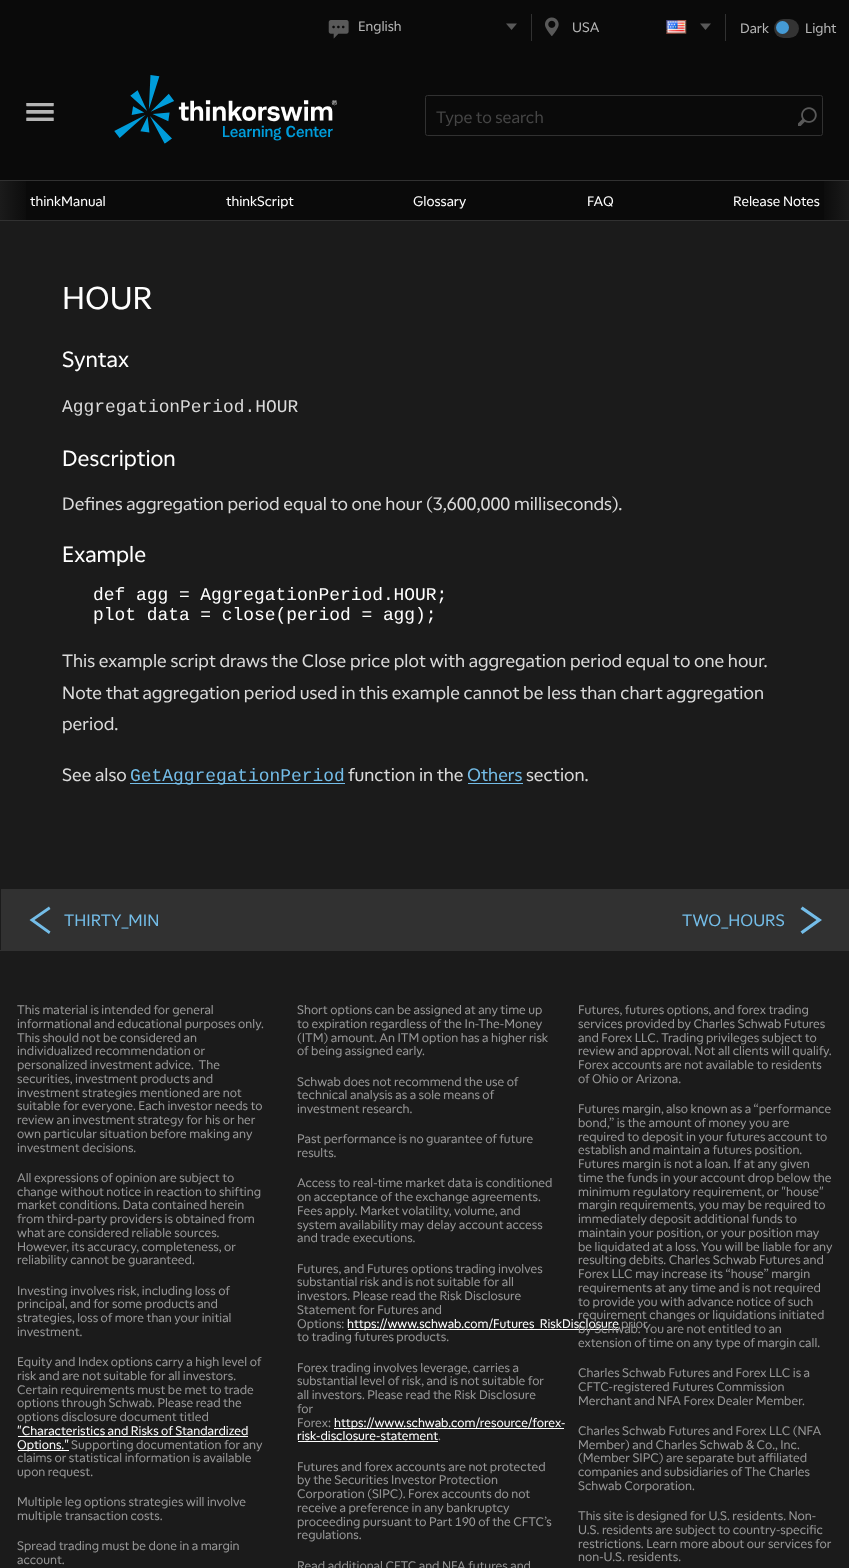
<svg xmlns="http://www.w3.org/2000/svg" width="849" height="1568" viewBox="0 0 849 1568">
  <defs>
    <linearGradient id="g1" gradientUnits="userSpaceOnUse" x1="0" y1="201" x2="31" y2="201"><stop offset="0" stop-color="rgb(27,27,27)"/><stop offset="1" stop-color="rgb(27,27,27)" stop-opacity="0"/></linearGradient>
    <linearGradient id="g2" gradientUnits="userSpaceOnUse" x1="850" y1="201" x2="819" y2="201"><stop offset="0" stop-color="rgb(27,27,27)"/><stop offset="1" stop-color="rgb(27,27,27)" stop-opacity="0"/></linearGradient>
  </defs>
  <rect width="100%" height="100%" fill="rgb(10,10,10)"/>
  <rect x="0" y="220" width="849" height="1" fill="rgb(49,49,49)"/>
  <rect x="531" y="14" width="1" height="27" fill="rgb(49,49,49)"/>
  <image x="328" y="20" width="21" height="19" href="pic1.png"/>
  <text x="358" y="31" font-family="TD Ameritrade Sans" font-size="13.75" fill="rgb(181,181,181)">English</text>
  <path d="M506 23.5L511.5 30L517 23.5Z" fill="rgb(89,89,89)"/>
  <rect x="725" y="14" width="1" height="27" fill="rgb(49,49,49)"/>
  <image x="545" y="17" width="14" height="19" href="pic2.png"/>
  <text x="572" y="32" font-family="TD Ameritrade Sans" font-size="13.75" fill="rgb(181,181,181)">USA</text>
  <image x="666" y="20" width="21" height="14" href="pic3.png"/>
  <path d="M700 23.5L705.5 30L711 23.5Z" fill="rgb(89,89,89)"/>
  <text x="740" y="33" font-family="TD Ameritrade Sans" font-size="13.75" fill="rgb(181,181,181)">Dark</text>
  <rect x="774" y="19" width="25" height="19" rx="9.5" fill="rgb(51,51,51)"/>
  <circle cx="782.5" cy="27.5" r="6.5" fill="rgb(69,155,214)"/>
  <text x="805" y="33" font-family="TD Ameritrade Sans" font-size="13.75" fill="rgb(181,181,181)">Light</text>
  <image x="26" y="103" width="28" height="18" href="pic4.png"/>
  <image x="114" y="75" width="223" height="69" href="pic5.png"/>
  <rect x="425.5" y="95.5" width="397" height="40" rx="2" fill="none" stroke="rgb(49,49,49)"/>
  <text x="436" y="123" font-family="TD Ameritrade Sans" font-size="16.5" fill="rgb(69,69,69)">Type to search</text>
  <image x="798" y="107" width="19" height="19" href="pic6.png"/>
  <rect x="0" y="180" width="849" height="1" fill="rgb(49,49,49)"/>
  <rect x="0" y="181" width="26" height="39" fill="url(#g1)"/>
  <g font-family="TD Ameritrade Sans" font-size="13.75" fill="rgb(255,255,255)">
    <text x="30" y="206">thinkManual</text>
    <text x="226" y="206">thinkScript</text>
    <text x="413" y="206">Glossary</text>
    <text x="587" y="206">FAQ</text>
    <text x="733" y="206">Release Notes</text>
  </g>
  <rect x="824" y="181" width="25" height="39" fill="url(#g2)"/>
  <rect x="0" y="221" width="849" height="668" fill="rgb(27,27,27)"/>
  <text x="62" y="309" font-family="TD Ameritrade Sans" font-size="31.5" fill="rgb(255,255,255)">HOUR</text>
  <text x="62" y="367" font-family="TD Ameritrade Sans" font-size="22" fill="rgb(255,255,255)">Syntax</text>
  <text x="62" y="412" font-family="Liberation Mono" font-size="17.9" fill="rgb(218,218,218)">AggregationPeriod.HOUR</text>
  <text x="62" y="466" font-family="TD Ameritrade Sans" font-size="22" fill="rgb(255,255,255)">Description</text>
  <text x="62" y="510" font-family="TD Ameritrade Sans" font-size="17.9" fill="rgb(218,218,218)">Defines aggregation period equal to one hour (3,600,000 milliseconds).</text>
  <text x="62" y="562" font-family="TD Ameritrade Sans" font-size="22" fill="rgb(255,255,255)">Example</text>
  <g font-family="Liberation Mono" font-size="17.9" fill="rgb(255,255,255)">
    <text>
      <tspan x="93" y="600">def agg = AggregationPeriod.HOUR;</tspan>
      <tspan x="93" y="620">plot data = close(period = agg);</tspan>
    </text>
  </g>
  <g font-family="TD Ameritrade Sans" font-size="17.9" fill="rgb(218,218,218)">
    <text>
      <tspan x="62" y="667">This example script draws the Close price plot with aggregation period equal to one hour.</tspan>
      <tspan x="62" y="699">Note that aggregation period used in this example cannot be less than chart aggregation</tspan>
      <tspan x="62" y="730">period.</tspan>
    </text>
    <text x="62" y="781">See also</text>
  </g>
  <rect x="130" y="783" width="215" height="1" fill="rgb(116,189,232)"/>
  <text x="130" y="781" font-family="Liberation Mono" font-size="17.9" fill="rgb(116,189,232)">GetAggregationPeriod</text>
  <text x="348" y="781" font-family="TD Ameritrade Sans" font-size="17.9" fill="rgb(218,218,218)">function in the</text>
  <text x="467" y="781" font-family="TD Ameritrade Sans" font-size="17.9" fill="rgb(116,189,232)">Others</text>
  <rect x="468" y="783" width="55" height="1" fill="rgb(116,189,232)"/>
  <text x="526" y="781" font-family="TD Ameritrade Sans" font-size="17.9" fill="rgb(218,218,218)">section.</text>
  <rect x="1" y="889" width="848" height="61" fill="rgb(49,49,49)"/>
  <rect x="0" y="889" width="1" height="61" fill="rgb(27,27,27)"/>
  <path d="M34.5 920L50.5 931.5L49 934L29.5 920L49 906.5L50.5 909Z" fill="rgb(116,189,232)" fill-rule="evenodd"/>
  <g font-family="TD Ameritrade Sans" font-size="16.5" fill="rgb(116,189,232)">
    <text x="64" y="926">THIRTY_MIN</text>
    <text x="682" y="926">TWO_HOURS</text>
  </g>
  <path d="M816.5 920L800.5 909L802.5 906.5L822 920L802.5 934L800.5 931.5Z" fill="rgb(116,189,232)" fill-rule="evenodd"/>
  <rect x="0" y="951" width="849" height="617" fill="rgb(27,27,27)"/>
  <rect x="0" y="950" width="849" height="1" fill="rgb(49,49,49)"/>
  <g font-family="TD Ameritrade Sans" font-size="12.4" fill="rgb(151,151,151)">
    <text xml:space="preserve"><tspan x="17" y="1014">This material is intended for general</tspan><tspan x="17" y="1028">informational and educational purposes only.</tspan><tspan x="17" y="1042">This should not be considered an</tspan><tspan x="17" y="1055">individualized recommendation or</tspan><tspan x="17" y="1069">personalized investment advice.  The</tspan><tspan x="17" y="1083">securities, investment products and</tspan><tspan x="17" y="1097">investment strategies mentioned are not</tspan><tspan x="17" y="1110">suitable for everyone. Each investor needs to</tspan><tspan x="17" y="1124">review an investment strategy for his or her</tspan><tspan x="17" y="1138">own particular situation before making any</tspan><tspan x="17" y="1152">investment decisions.</tspan></text>
    <text>
      <tspan x="17" y="1182">All expressions of opinion are subject to</tspan>
      <tspan x="17" y="1196">change without notice in reaction to shifting</tspan>
      <tspan x="17" y="1209">market conditions. Data contained herein</tspan>
      <tspan x="17" y="1223">from third-party providers is obtained from</tspan>
      <tspan x="17" y="1237">what are considered reliable sources.</tspan>
      <tspan x="17" y="1251">However, its accuracy, completeness, or</tspan>
      <tspan x="17" y="1264">reliability cannot be guaranteed.</tspan>
    </text>
    <text>
      <tspan x="17" y="1295">Investing involves risk, including loss of</tspan>
      <tspan x="17" y="1308">principal, and for some products and</tspan>
      <tspan x="17" y="1322">strategies, loss of more than your initial</tspan>
      <tspan x="17" y="1336">investment.</tspan>
    </text>
    <text>
      <tspan x="17" y="1366">Equity and Index options carry a high level of</tspan>
      <tspan x="17" y="1380">risk and are not suitable for all investors.</tspan>
      <tspan x="17" y="1394">Certain requirements must be met to trade</tspan>
      <tspan x="17" y="1407">options through Schwab. Please read the</tspan>
      <tspan x="17" y="1421">options disclosure document titled</tspan>
    </text>
  </g>
  <text x="17" y="1435" font-family="TD Ameritrade Sans" font-size="12.4" fill="rgb(255,255,255)">"Characteristics and Risks of Standardized</text>
  <rect x="18" y="1436" width="230" height="1" fill="rgb(255,255,255)"/>
  <rect x="18" y="1450" width="51" height="1" fill="rgb(255,255,255)"/>
  <text x="17" y="1449" font-family="TD Ameritrade Sans" font-size="12.4" fill="rgb(255,255,255)">Options."</text>
  <g font-family="TD Ameritrade Sans" font-size="12.4" fill="rgb(151,151,151)">
    <text x="71" y="1449">Supporting documentation for any</text>
    <text>
      <tspan x="17" y="1462">claims or statistical information is available</tspan>
      <tspan x="17" y="1476">upon request.</tspan>
    </text>
    <text>
      <tspan x="17" y="1506">Multiple leg options strategies will involve</tspan>
      <tspan x="17" y="1520">multiple transaction costs.</tspan>
    </text>
    <text>
      <tspan x="17" y="1550">Spread trading must be done in a margin</tspan>
      <tspan x="17" y="1564">account.</tspan>
    </text>
    <text>
      <tspan x="297" y="1014">Short options can be assigned at any time up</tspan>
      <tspan x="297" y="1028">to expiration regardless of the In-The-Money</tspan>
      <tspan x="297" y="1042">(ITM) amount. An ITM option has a higher risk</tspan>
      <tspan x="297" y="1055">of being assigned early.</tspan>
    </text>
    <text>
      <tspan x="297" y="1086">Schwab does not recommend the use of</tspan>
      <tspan x="297" y="1099">technical analysis as a sole means of</tspan>
      <tspan x="297" y="1113">investment research.</tspan>
    </text>
    <text>
      <tspan x="297" y="1143">Past performance is no guarantee of future</tspan>
      <tspan x="297" y="1157">results.</tspan>
    </text>
    <text>
      <tspan x="297" y="1187">Access to real-time market data is conditioned</tspan>
      <tspan x="297" y="1201">on acceptance of the exchange agreements.</tspan>
      <tspan x="297" y="1215">Fees apply. Market volatility, volume, and</tspan>
      <tspan x="297" y="1229">system availability may delay account access</tspan>
      <tspan x="297" y="1242">and trade executions.</tspan>
    </text>
    <text>
      <tspan x="297" y="1273">Futures, and Futures options trading involves</tspan>
      <tspan x="297" y="1286">substantial risk and is not suitable for all</tspan>
      <tspan x="297" y="1300">investors. Please read the Risk Disclosure</tspan>
      <tspan x="297" y="1314">Statement for Futures and</tspan>
      <tspan x="297" y="1328">Options:</tspan>
    </text>
  </g>
  <rect x="348" y="1329" width="271" height="1" fill="rgb(255,255,255)"/>
  <text x="347" y="1328" font-family="TD Ameritrade Sans" font-size="12.4" fill="rgb(255,255,255)">https://www.schwab.com/Futures_RiskDisclosure</text>
  <g font-family="TD Ameritrade Sans" font-size="12.4" fill="rgb(151,151,151)">
    <text x="621" y="1328">prior</text>
    <text x="297" y="1341">to trading futures products.</text>
    <text>
      <tspan x="297" y="1372">Forex trading involves leverage, carries a</tspan>
      <tspan x="297" y="1385">substantial level of risk, and is not suitable for</tspan>
      <tspan x="297" y="1399">all investors. Please read the Risk Disclosure</tspan>
      <tspan x="297" y="1413">for</tspan>
      <tspan x="297" y="1427">Forex:</tspan>
    </text>
  </g>
  <rect x="334" y="1428" width="230" height="1" fill="rgb(255,255,255)"/>
  <g font-family="TD Ameritrade Sans" font-size="12.4" fill="rgb(255,255,255)">
    <text x="334" y="1427">https://www.schwab.com/resource/forex-</text>
    <text x="297" y="1440">risk-disclosure-statement</text>
  </g>
  <rect x="298" y="1441" width="140" height="1" fill="rgb(255,255,255)"/>
  <g font-family="TD Ameritrade Sans" font-size="12.4" fill="rgb(151,151,151)">
    <text x="438" y="1440">.</text>
    <text>
      <tspan x="297" y="1471">Futures and forex accounts are not protected</tspan>
      <tspan x="297" y="1484">by the Securities Investor Protection</tspan>
      <tspan x="297" y="1498">Corporation (SIPC). Forex accounts do not</tspan>
      <tspan x="297" y="1512">receive a preference in any bankruptcy</tspan>
      <tspan x="297" y="1526">proceeding pursuant to Part 190 of the CFTC’s</tspan>
      <tspan x="297" y="1539">regulations.</tspan>
    </text>
    <text x="297" y="1570">Read additional CFTC and NFA futures and</text>
    <text>
      <tspan x="578" y="1014">Futures, futures options, and forex trading</tspan>
      <tspan x="578" y="1028">services provided by Charles Schwab Futures</tspan>
      <tspan x="578" y="1042">and Forex LLC. Trading privileges subject to</tspan>
      <tspan x="578" y="1055">review and approval. Not all clients will qualify.</tspan>
      <tspan x="578" y="1069">Forex accounts are not available to residents</tspan>
      <tspan x="578" y="1083">of Ohio or Arizona.</tspan>
    </text>
    <text>
      <tspan x="578" y="1113">Futures margin, also known as a “performance</tspan>
      <tspan x="578" y="1127">bond,” is the amount of money you are</tspan>
      <tspan x="578" y="1141">required to deposit in your futures account to</tspan>
      <tspan x="578" y="1154">establish and maintain a futures position.</tspan>
      <tspan x="578" y="1168">Futures margin is not a loan. If at any given</tspan>
      <tspan x="578" y="1182">time the funds in your account drop below the</tspan>
      <tspan x="578" y="1196">minimum regulatory requirement, or "house"</tspan>
      <tspan x="578" y="1209">margin requirements, you may be required to</tspan>
      <tspan x="578" y="1223">immediately deposit additional funds to</tspan>
      <tspan x="578" y="1237">maintain your position, or your position may</tspan>
      <tspan x="578" y="1251">be liquidated at a loss. You will be liable for any</tspan>
      <tspan x="578" y="1264">resulting debits. Charles Schwab Futures and</tspan>
      <tspan x="578" y="1278">Forex LLC may increase its “house” margin</tspan>
      <tspan x="578" y="1292">requirements at any time and is not required</tspan>
      <tspan x="578" y="1306">to provide you with advance notice of such</tspan>
      <tspan x="578" y="1319">requirement changes or liquidations initiated</tspan>
      <tspan x="578" y="1333">by Schwab. You are not entitled to an</tspan>
      <tspan x="578" y="1347">extension of time on any type of margin call.</tspan>
    </text>
    <text>
      <tspan x="578" y="1377">Charles Schwab Futures and Forex LLC is a</tspan>
      <tspan x="578" y="1391">CFTC-registered Futures Commission</tspan>
      <tspan x="578" y="1405">Merchant and NFA Forex Dealer Member.</tspan>
    </text>
    <text>
      <tspan x="578" y="1435">Charles Schwab Futures and Forex LLC (NFA</tspan>
      <tspan x="578" y="1449">Member) and Charles Schwab &amp; Co., Inc.</tspan>
      <tspan x="578" y="1462">(Member SIPC) are separate but affiliated</tspan>
      <tspan x="578" y="1476">companies and subsidiaries of The Charles</tspan>
      <tspan x="578" y="1490">Schwab Corporation.</tspan>
    </text>
    <text>
      <tspan x="578" y="1520">This site is designed for U.S. residents. Non-</tspan>
      <tspan x="578" y="1534">U.S. residents are subject to country-specific</tspan>
      <tspan x="578" y="1548">restrictions. Learn more about our services for</tspan>
      <tspan x="578" y="1561">non-U.S. residents.</tspan>
    </text>
  </g>
</svg>
